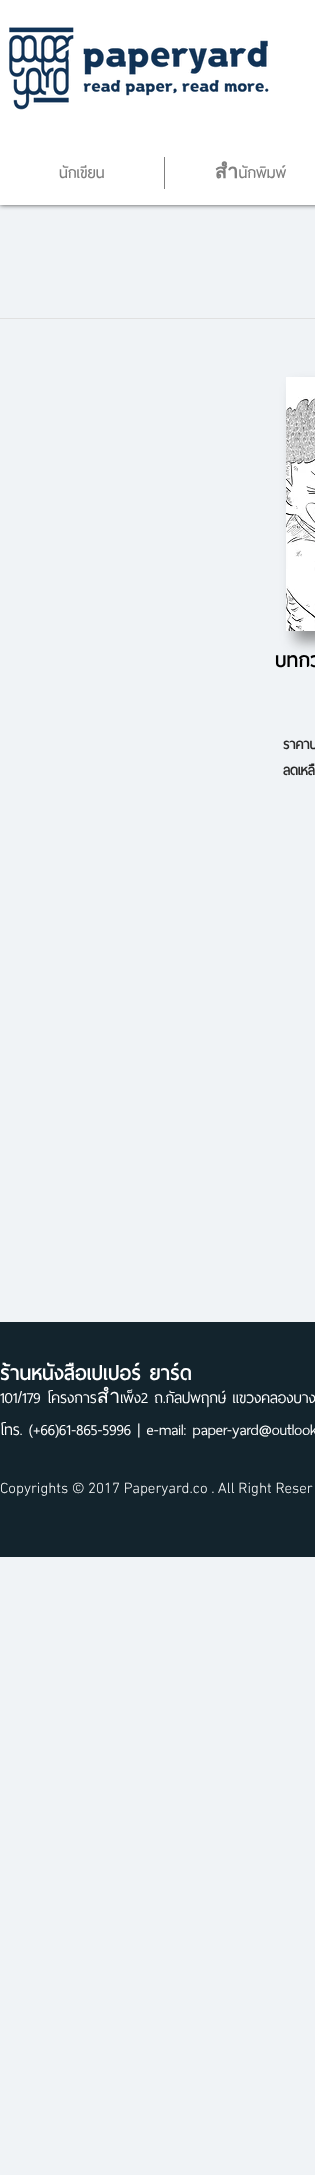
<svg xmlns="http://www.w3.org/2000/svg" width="315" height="2175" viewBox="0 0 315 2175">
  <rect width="100%" height="100%" fill="rgb(240,243,246)"/>
  <rect x="0" y="0" width="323" height="205" fill="rgba(0,0,0,0.7)" filter="blur(2.5px)"/>
  <rect x="0" y="0" width="315" height="205" fill="rgb(255,255,255)"/>
  <image x="9" y="27" width="260" height="83" href="pic1.png"/>
  <text x="59" y="178" font-family="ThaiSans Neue" font-size="20" font-weight="600" fill="rgb(128,128,128)">นักเขียน</text>
  <rect x="164" y="157" width="1" height="32" fill="rgb(128,128,128)"/>
  <text x="215" y="178" font-family="ThaiSans Neue" font-size="20" font-weight="600" fill="rgb(128,128,128)">สำนักพิมพ์</text>
  <rect x="0" y="318" width="315" height="1" fill="rgb(224,224,224)"/>
  <rect x="295" y="387" width="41" height="254" fill="rgba(42,42,42,0.5)" filter="blur(7px)"/>
  <image x="286" y="377" width="29" height="254" href="pic2.png"/>
  <text x="275" y="667" font-family="ThaiSans Neue" font-size="26" font-weight="bold" fill="rgb(0,0,0)">บทกว</text>
  <g font-family="'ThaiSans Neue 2'" font-size="18" font-weight="bold" fill="rgb(42,42,42)">
    <text>
      <tspan x="283" y="749">ราคาป</tspan>
      <tspan x="283" y="775">ลดเหลื</tspan>
    </text>
  </g>
  <rect x="0" y="1322" width="315" height="235" fill="rgb(19,36,45)"/>
  <text x="0" y="1380" font-family="ThaiSans Neue" font-size="26" font-weight="bold" fill="rgb(255,255,255)">ร้านหนังสือเปเปอร์ ยาร์ด</text>
  <g font-family="ThaiSans Neue" font-size="20" fill="rgb(255,255,255)">
    <text>
      <tspan x="0" y="1403">101/179 โครงการสำเพ็ง2 ถ.กัลปพฤกษ์ แขวงคลองบางพ</tspan>
      <tspan x="0" y="1435">โทร. (+66)61-865-5996 | e-mail: paper-yard@outlook</tspan>
    </text>
  </g>
  <text x="0" y="1493" font-family="'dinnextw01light'" font-size="15" font-weight="300" fill="rgb(255,255,255)">Copyrights © 2017 Paperyard.co . All Right Reser</text>
</svg>
